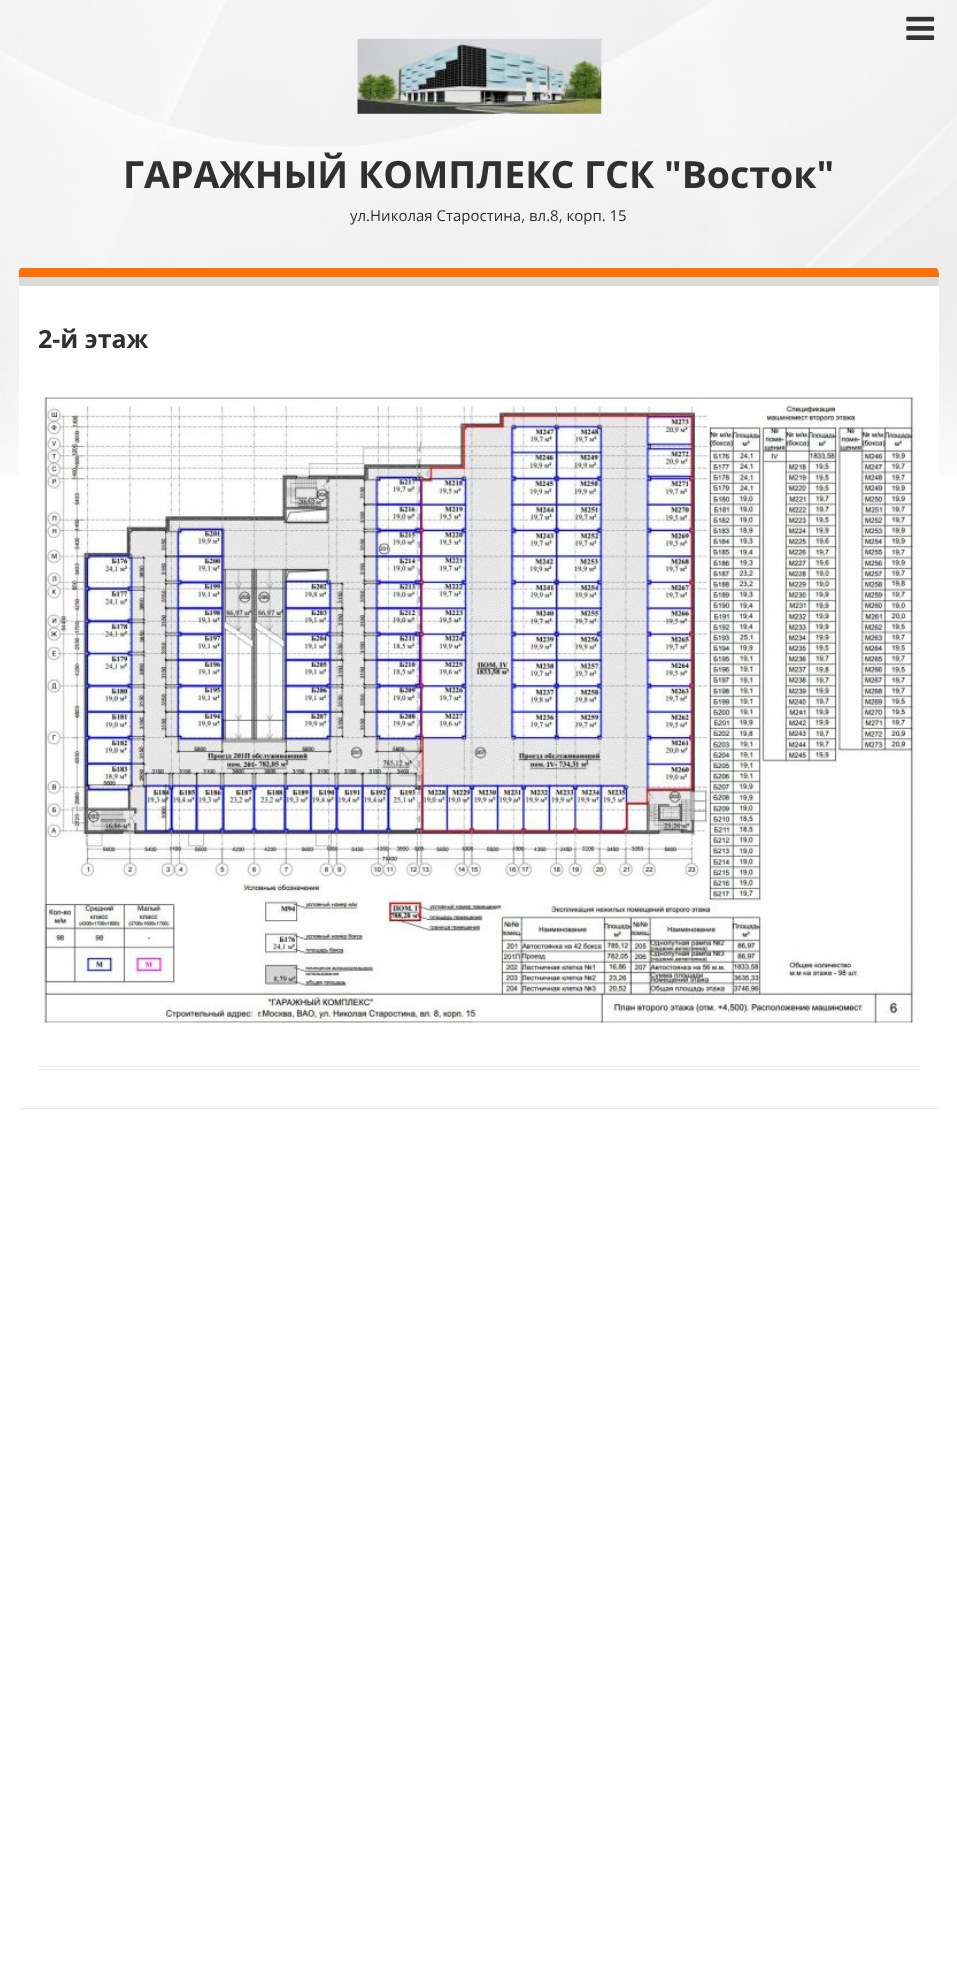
<svg xmlns="http://www.w3.org/2000/svg" width="957" height="1971" viewBox="0 0 957 1971">
  <rect width="100%" height="100%" fill="rgb(255,255,255)"/>
  <image x="0" y="0" width="957" height="477" href="pic1.png"/>
  <image x="906" y="16" width="29" height="24" href="pic2.png"/>
  <image x="357" y="38" width="245" height="76" href="pic3.png"/>
  <text x="123" y="188" font-family="Open Sans" font-size="37.5" font-weight="bold" fill="rgb(48,48,48)">ГАРАЖНЫЙ КОМПЛЕКС ГСК "Восток"</text>
  <text x="350" y="221" font-family="Open Sans" font-size="15" fill="rgb(48,48,48)">ул.Николая Старостина, вл.8, корп. 15</text>
  <path d="M22 268H936C938 268 938 271 939 273V277H19C19 274 18 268 22 268Z" fill="rgb(255,111,7)"/>
  <rect x="19" y="277" width="920" height="9" fill="rgb(220,220,220)"/>
  <rect x="19" y="286" width="920" height="191" fill="rgb(255,255,255)"/>
  <rect x="38" y="1066" width="882" height="1" fill="rgb(235,237,237)"/>
  <rect x="38" y="1069" width="882" height="1" fill="rgb(235,237,237)"/>
  <text x="38" y="348" font-family="Open Sans" font-size="25" font-weight="bold" fill="rgb(48,48,48)">2-й этаж</text>
  <image x="40" y="397" width="880" height="626" href="pic4.png"/>
  <rect x="19" y="1108" width="920" height="1" fill="rgb(235,237,237)"/>
</svg>
